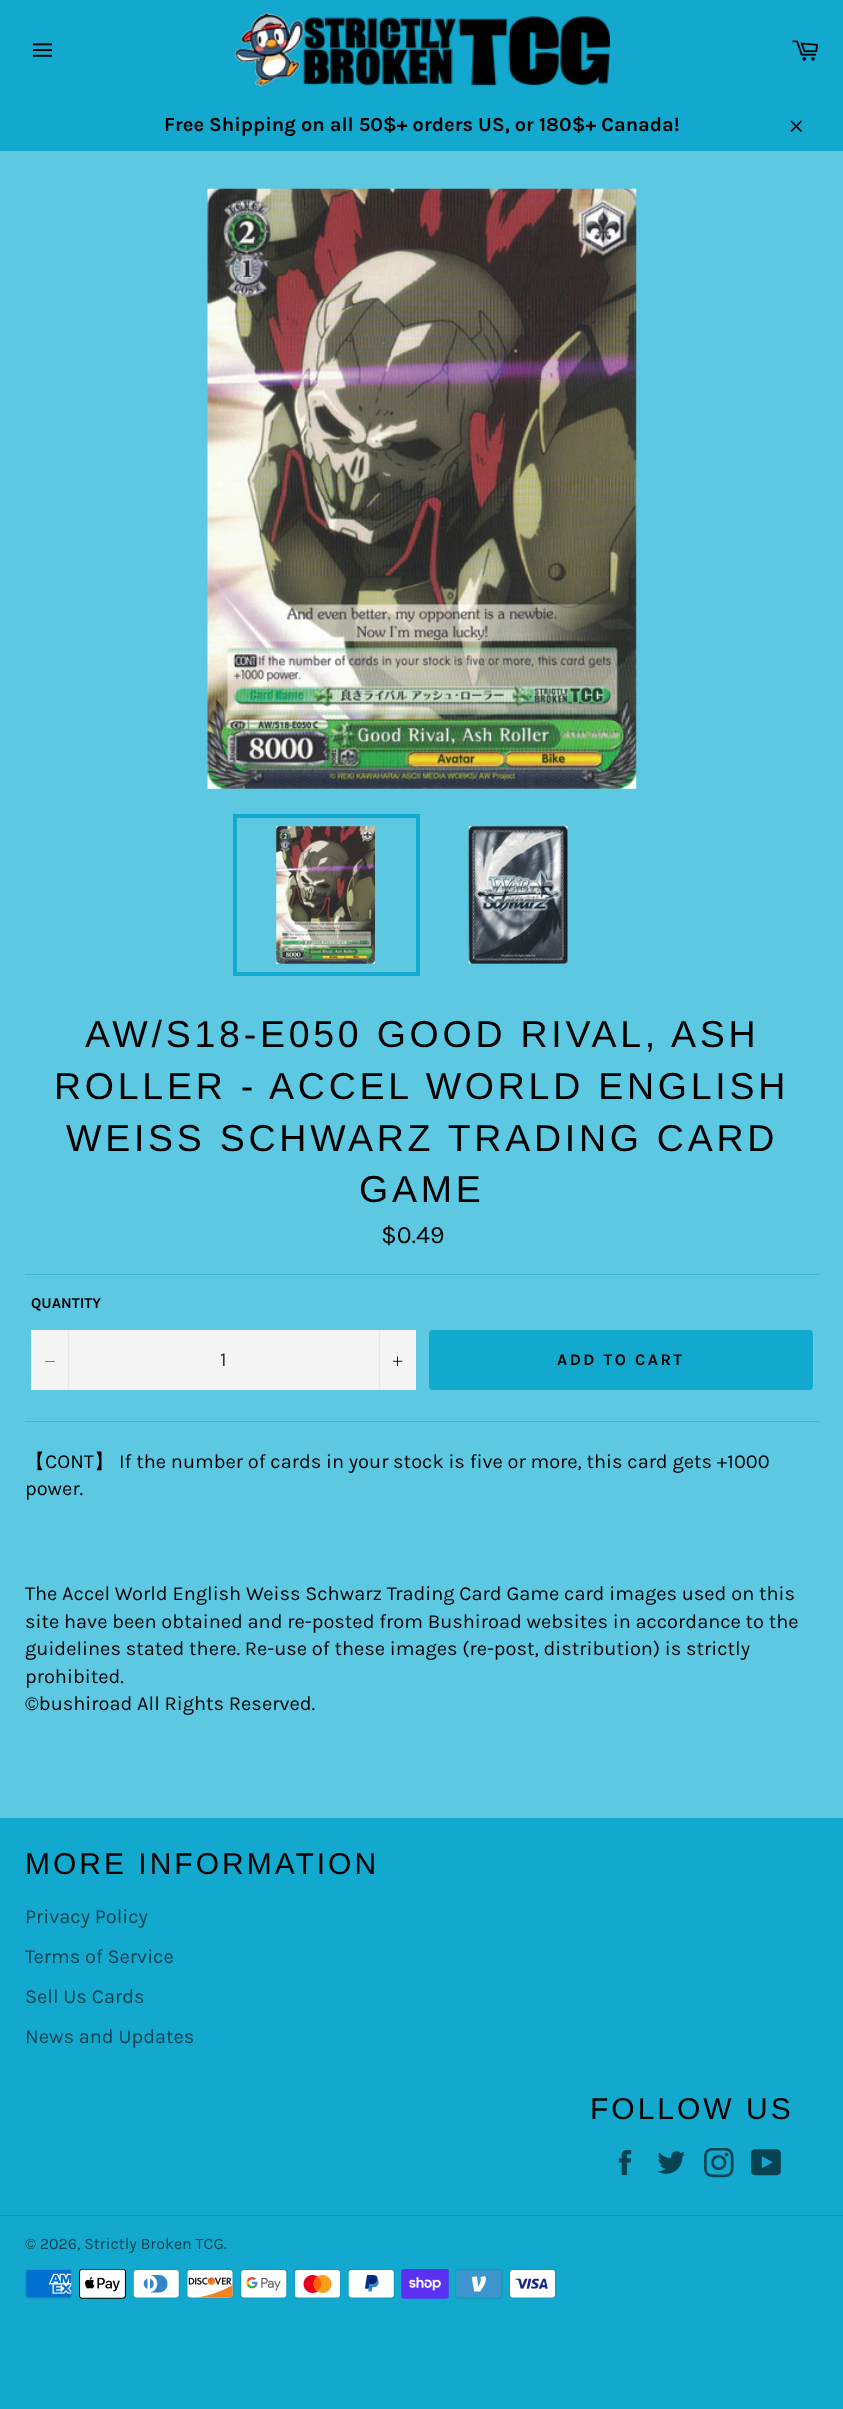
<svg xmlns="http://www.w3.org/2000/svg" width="843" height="2409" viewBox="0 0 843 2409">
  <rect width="100%" height="100%" fill="rgb(19,168,205)"/>
  <image x="32" y="43" width="21" height="14" href="pic1.png"/>
  <image x="235" y="12" width="375" height="75" href="pic2.png"/>
  <image x="792" y="40" width="26" height="21" href="pic3.png"/>
  <text x="164" y="131" font-family="Karla" font-size="20" font-weight="bold" fill="rgb(0,0,0)">Free Shipping on all 50$+ orders US, or 180$+ Canada!</text>
  <image x="790" y="120" width="12" height="12" href="pic4.png"/>
  <rect x="0" y="151" width="843" height="1667" fill="rgb(93,200,225)"/>
  <image x="207" y="188" width="430" height="601" href="pic5.png"/>
  <image x="276" y="826" width="99" height="138" href="pic6.png"/>
  <rect x="235" y="816" width="183" height="158" fill="none" stroke="rgb(19,168,205)" stroke-width="4"/>
  <image x="468" y="826" width="100" height="138" href="pic7.png"/>
  <g font-family="Arimo" font-size="37.5" letter-spacing="3.75" fill="rgb(0,0,0)">
    <text x="85" y="1047">AW/S18-E050 GOOD RIVAL, ASH</text>
    <text x="54" y="1099">ROLLER - ACCEL WORLD ENGLISH</text>
    <text x="66" y="1151">WEISS SCHWARZ TRADING CARD</text>
    <text x="359" y="1202">GAME</text>
  </g>
  <text x="381" y="1243" font-family="Karla" font-size="25" fill="rgb(0,0,0)">$0.49</text>
  <rect x="25" y="1274" width="794" height="1" fill="rgb(59,184,215)"/>
  <text x="31" y="1308" font-family="Karla" font-size="15" font-weight="bold" fill="rgb(0,0,0)">QUANTITY</text>
  <rect x="31" y="1330" width="385" height="60" fill="rgb(244,244,244)"/>
  <rect x="68" y="1330" width="1" height="60" fill="rgb(231,231,231)"/>
  <path d="M55 1361V1361.5H45V1361Z" fill="rgb(4,4,4)" fill-rule="evenodd"/>
  <text x="220" y="1366" font-family="Karla" font-size="20" fill="rgb(51,51,51)">1</text>
  <rect x="379" y="1330" width="1" height="60" fill="rgb(231,231,231)"/>
  <image x="393" y="1356" width="10" height="10" href="pic8.png"/>
  <rect x="429" y="1330" width="384" height="60" rx="4" fill="rgb(19,168,205)"/>
  <text x="557" y="1365" font-family="Karla" font-size="16.25" font-weight="bold" letter-spacing="2.5" fill="rgb(0,0,0)">ADD TO CART</text>
  <rect x="25" y="1421" width="794" height="1" fill="rgb(59,184,215)"/>
  <text x="25" y="1468" font-family="WenQuanYi Zen Hei" font-size="20" font-weight="500" fill="rgb(0,0,0)">【</text>
  <text x="45" y="1468" font-family="Karla" font-size="20" fill="rgb(0,0,0)">CONT</text>
  <text x="94" y="1468" font-family="WenQuanYi Zen Hei" font-size="20" font-weight="500" fill="rgb(0,0,0)">】</text>
  <g font-family="Karla" font-size="20" fill="rgb(0,0,0)">
    <text x="119" y="1468">If the number of cards in your stock is five or more, this card gets +1000</text>
    <text x="25" y="1495">power.</text>
    <text>
      <tspan x="25" y="1600">The Accel World English Weiss Schwarz Trading Card Game card images used on this</tspan>
      <tspan x="25" y="1628">site have been obtained and re-posted from Bushiroad websites in accordance to the</tspan>
      <tspan x="25" y="1655">guidelines stated there. Re-use of these images (re-post, distribution) is strictly</tspan>
      <tspan x="25" y="1683">prohibited.</tspan>
      <tspan x="25" y="1710">©bushiroad All Rights Reserved.</tspan>
    </text>
  </g>
  <text x="25" y="1874" font-family="Arimo" font-size="30" letter-spacing="3" fill="rgb(0,0,0)">MORE INFORMATION</text>
  <g font-family="Karla" font-size="20" fill="rgb(8,67,82)">
    <text x="25" y="1923">Privacy Policy</text>
    <text x="25" y="1963">Terms of Service</text>
    <text x="25" y="2003">Sell Us Cards</text>
    <text x="25" y="2043">News and Updates</text>
  </g>
  <text x="590" y="2119" font-family="Arimo" font-size="30" letter-spacing="3" fill="rgb(0,0,0)">FOLLOW US</text>
  <image x="618" y="2150" width="14" height="25" href="pic9.png"/>
  <image x="657" y="2151" width="28" height="23" href="pic10.png"/>
  <image x="704" y="2148" width="30" height="30" href="pic11.png"/>
  <image x="751" y="2149" width="30" height="27" href="pic12.png"/>
  <rect x="0" y="2215" width="843" height="1" fill="rgb(17,149,182)"/>
  <text x="25" y="2249" font-family="Karla" font-size="16" fill="rgb(8,67,82)">© 2026, Strictly Broken TCG.</text>
  <image x="25" y="2269" width="48" height="30" href="pic13.png"/>
  <image x="79" y="2269" width="47" height="30" href="pic14.png"/>
  <image x="133" y="2269" width="47" height="30" href="pic15.png"/>
  <image x="186" y="2269" width="48" height="30" href="pic16.png"/>
  <image x="240" y="2269" width="48" height="30" href="pic17.png"/>
  <image x="294" y="2269" width="47" height="30" href="pic18.png"/>
  <image x="348" y="2269" width="47" height="30" href="pic19.png"/>
  <image x="401" y="2269" width="48" height="30" href="pic20.png"/>
  <image x="455" y="2269" width="48" height="30" href="pic21.png"/>
  <image x="509" y="2269" width="47" height="30" href="pic22.png"/>
</svg>
